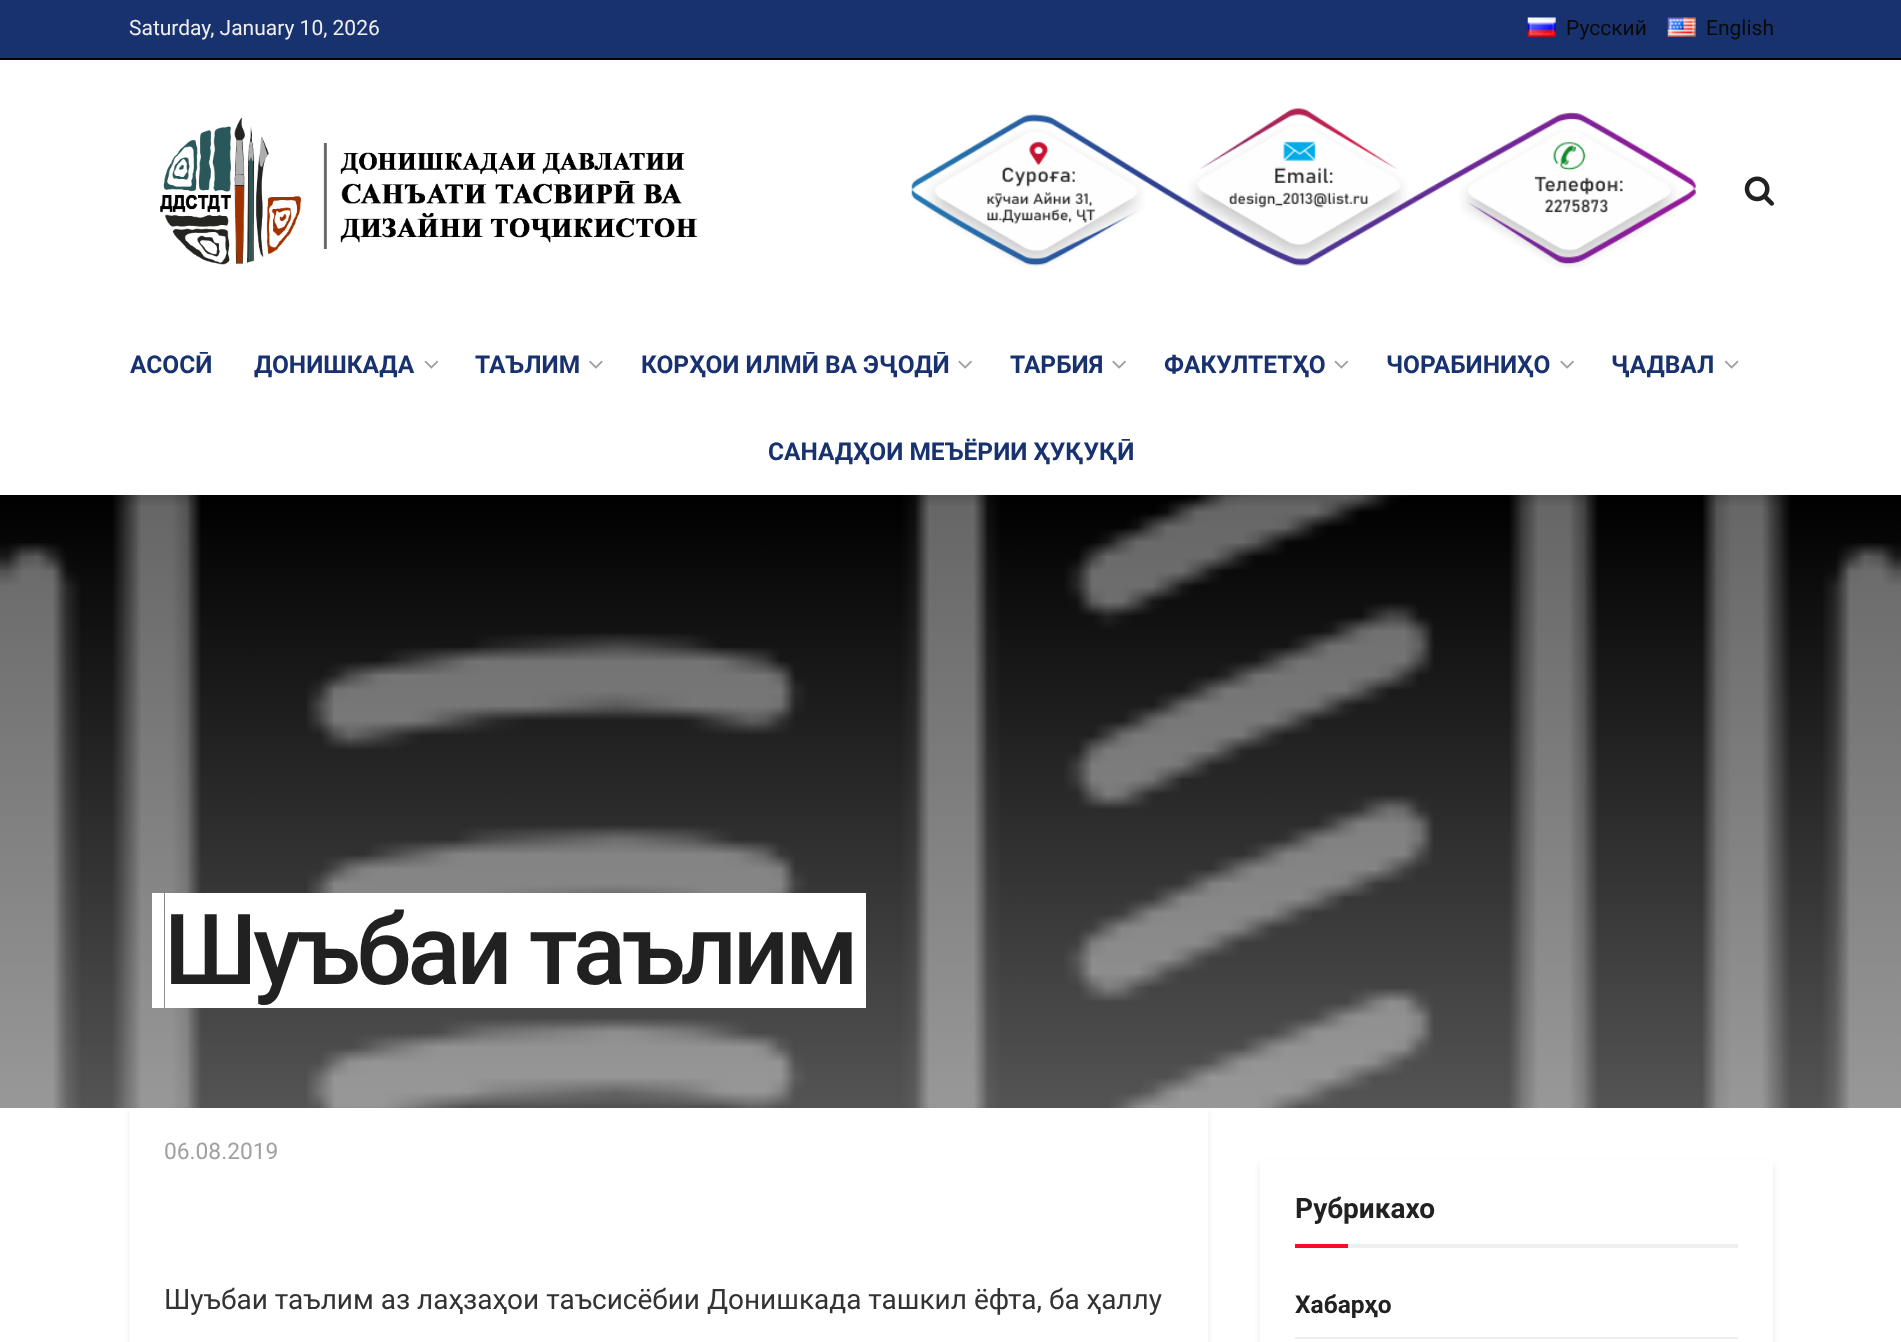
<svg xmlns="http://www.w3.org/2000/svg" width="1901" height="1342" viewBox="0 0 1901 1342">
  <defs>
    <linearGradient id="g1" gradientUnits="userSpaceOnUse" x1="951" y1="495" x2="951" y2="1108"><stop offset="0" stop-color="rgb(0,0,0)"/><stop offset="1" stop-color="rgb(84,84,84)"/></linearGradient>
    <linearGradient id="g2" gradientUnits="userSpaceOnUse" x1="951" y1="495" x2="951" y2="508"><stop offset="0" stop-color="rgb(0,0,0)" stop-opacity="0.15"/><stop offset="1" stop-color="rgb(0,0,0)" stop-opacity="0"/></linearGradient>
  </defs>
  <rect width="100%" height="100%" fill="rgb(255,255,255)"/>
  <rect x="0" y="0" width="1901" height="58" fill="rgb(24,50,111)"/>
  <rect x="0" y="58" width="1901" height="2" fill="rgb(10,0,0)"/>
  <text x="129" y="35" font-family="Roboto" font-size="21" fill="rgb(239,239,239)">Saturday, January 10, 2026</text>
  <image x="1527" y="17" width="29" height="20" href="pic1.png"/>
  <text x="1566" y="35" font-family="Roboto" font-size="21" fill="rgb(10,10,10)">Русский</text>
  <image x="1667" y="17" width="29" height="20" href="pic2.png"/>
  <text x="1706" y="35" font-family="Roboto" font-size="21" fill="rgb(10,10,10)">English</text>
  <image x="160" y="117" width="538" height="148" href="pic3.png"/>
  <image x="911" y="108" width="785" height="160" href="pic4.png"/>
  <image x="1744" y="176" width="30" height="30" href="pic5.png"/>
  <g font-family="Roboto" font-size="24.5" font-weight="bold" fill="rgb(24,50,111)">
    <text x="130" y="373">АСОСӢ</text>
    <text x="254" y="373">ДОНИШКАДА</text>
  </g>
  <image x="424" y="360" width="15" height="9" href="pic6.png"/>
  <text x="475" y="373" font-family="Roboto" font-size="24.5" font-weight="bold" fill="rgb(24,50,111)">ТАЪЛИМ</text>
  <image x="589" y="360" width="14" height="9" href="pic7.png"/>
  <text x="641" y="373" font-family="Roboto" font-size="24.5" font-weight="bold" fill="rgb(24,50,111)">КОРҲОИ ИЛМӢ ВА ЭҶОДӢ</text>
  <image x="958" y="360" width="14" height="9" href="pic8.png"/>
  <text x="1010" y="373" font-family="Roboto" font-size="24.5" font-weight="bold" fill="rgb(24,50,111)">ТАРБИЯ</text>
  <image x="1112" y="360" width="14" height="9" href="pic8.png"/>
  <text x="1164" y="373" font-family="Roboto" font-size="24.5" font-weight="bold" fill="rgb(24,50,111)">ФАКУЛТЕТҲО</text>
  <image x="1334" y="360" width="15" height="9" href="pic6.png"/>
  <text x="1386" y="373" font-family="Roboto" font-size="24.5" font-weight="bold" fill="rgb(24,50,111)">ЧОРАБИНИҲО</text>
  <image x="1560" y="360" width="14" height="9" href="pic8.png"/>
  <text x="1611" y="373" font-family="Roboto" font-size="24.5" font-weight="bold" fill="rgb(24,50,111)">ҶАДВАЛ</text>
  <image x="1724" y="360" width="15" height="9" href="pic9.png"/>
  <text x="768" y="460" font-family="Roboto" font-size="24.5" font-weight="bold" fill="rgb(24,50,111)">САНАДҲОИ МЕЪЁРИИ ҲУҚУҚӢ</text>
  <rect x="0" y="495" width="1901" height="613" fill="url(#g1)"/>
  <image x="0" y="495" width="1901" height="613" href="pic10.png"/>
  <rect x="117" y="495" width="1669" height="11" fill="url(#g2)"/>
  <rect x="130" y="1111" width="1078" height="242" fill="rgba(0,0,0,0.08)" filter="blur(3.5px)"/>
  <rect x="130" y="1108" width="1078" height="234" fill="rgb(255,255,255)"/>
  <rect x="165" y="893" width="701" height="115" fill="rgb(255,255,255)"/>
  <text x="164" y="984" font-family="Roboto" font-size="98" font-weight="500" letter-spacing="-3.9" fill="rgb(33,33,33)">Шуъбаи таълим</text>
  <rect x="152" y="893" width="12" height="115" fill="rgb(255,255,255)"/>
  <text x="164" y="1159" font-family="Roboto" font-size="22.75" fill="rgb(160,160,160)">06.08.2019</text>
  <text x="164" y="1309" font-family="Roboto" font-size="28" fill="rgb(51,51,51)">Шуъбаи таълим аз лаҳзаҳои таъсисёбии Донишкада ташкил ёфта, ба ҳаллу</text>
  <rect x="1260" y="1164" width="513" height="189" fill="rgba(0,0,0,0.08)" filter="blur(3.5px)"/>
  <rect x="1260" y="1160" width="513" height="182" fill="rgb(255,255,255)"/>
  <rect x="1348" y="1244" width="390" height="4" fill="rgb(238,238,238)"/>
  <text x="1295" y="1218" font-family="Roboto" font-size="28" font-weight="bold" fill="rgb(33,33,33)">Рубрикахо</text>
  <rect x="1295" y="1244" width="53" height="4" fill="rgb(247,13,40)"/>
  <text x="1295" y="1313" font-family="Roboto" font-size="24.5" font-weight="bold" fill="rgb(33,33,33)">Хабарҳо</text>
  <rect x="1295" y="1337" width="443" height="2" fill="rgb(238,238,238)"/>
</svg>
